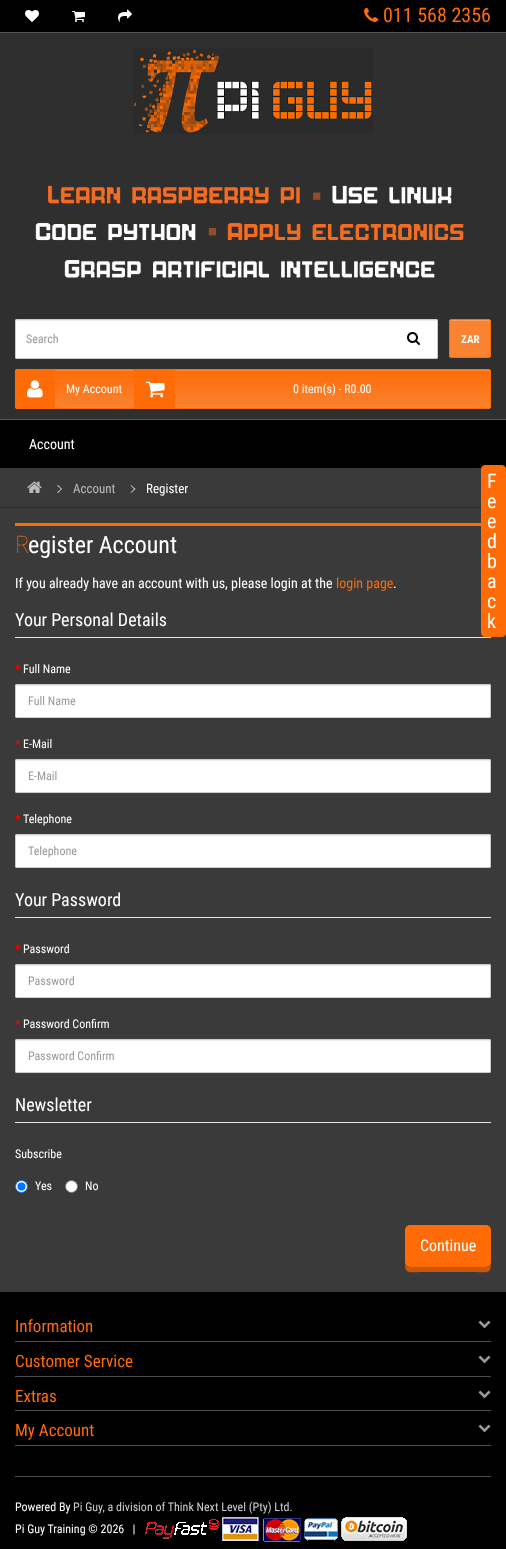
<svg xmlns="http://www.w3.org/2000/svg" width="506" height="1549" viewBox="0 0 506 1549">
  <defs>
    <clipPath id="clip1"><rect x="449" y="319" width="42" height="39" rx="2"/></clipPath>
    <linearGradient id="g1" gradientUnits="userSpaceOnUse" x1="75" y1="370" x2="75" y2="408"><stop offset="0" stop-color="rgb(255,107,6)"/><stop offset="1" stop-color="rgb(250,131,49)"/></linearGradient>
    <linearGradient id="g2" gradientUnits="userSpaceOnUse" x1="313" y1="370" x2="313" y2="408"><stop offset="0" stop-color="rgb(255,107,6)"/><stop offset="1" stop-color="rgb(250,131,49)"/></linearGradient>
  </defs>
  <rect width="100%" height="100%" fill="rgb(58,58,58)"/>
  <rect x="0" y="33" width="506" height="386" fill="rgb(47,47,47)"/>
  <rect x="0" y="0" width="506" height="32" fill="rgb(0,0,0)"/>
  <rect x="0" y="32" width="506" height="1" fill="rgb(85,85,85)"/>
  <image x="25" y="10" width="14" height="12" href="pic1.png"/>
  <image x="72" y="11" width="13" height="11" href="pic2.png"/>
  <image x="118" y="9" width="14" height="13" href="pic3.png"/>
  <image x="364" y="7" width="15" height="15" href="pic4.png"/>
  <text x="383" y="22" font-family="Roboto Condensed" font-size="20" fill="rgb(255,107,6)">011 568 2356</text>
  <image x="133" y="48" width="240" height="86" href="pic5.png"/>
  <image x="35" y="185" width="429" height="93" href="pic6.png"/>
  <rect x="15" y="319" width="423" height="40" rx="2" fill="rgb(255,255,255)"/>
  <path d="M17 321H436H437V322V321L436 320H17L16 322C16 321 16 321 17 321Z" fill="rgb(236,236,236)"/>
  <rect x="15.5" y="319.5" width="422" height="39" rx="1.5" fill="none" stroke="rgb(204,204,204)"/>
  <text x="26" y="343" font-family="Roboto Condensed" font-size="12" fill="rgb(153,153,153)">Search</text>
  <image x="407" y="332" width="13" height="13" href="pic7.png"/>
  <g clip-path="url(#clip1)">
    <rect x="449" y="320" width="42" height="37" fill="rgb(250,131,49)"/>
  </g>
  <path d="M451 320L450 321H489L490 323C490 322 490 320 489 320Z" fill="rgb(251,156,90)"/>
  <rect x="449.5" y="319.5" width="41" height="38" rx="1.5" fill="none" stroke="rgb(255,107,6)"/>
  <text x="461" y="343" font-family="Roboto Condensed" font-size="11" font-weight="bold" fill="rgb(255,255,255)">ZAR</text>
  <rect x="15" y="370" width="119" height="38" fill="url(#g1)"/>
  <path d="M17 371H134V370H17C16 370 16 371 16 372C16 371 16 371 17 371Z" fill="rgb(255,137,57)"/>
  <path d="M17 369.5H134.5V408.5H17C16 408.5 15.5 408 15.5 407V371C15.5 370 16 369.5 17 369.5Z" fill="none" stroke="rgb(255,107,6)"/>
  <path d="M17 369H55V409H17C16 409 15 408 15 407V371C15 370 16 369 17 369Z" fill="rgb(255,107,6)"/>
  <image x="27" y="380" width="16" height="18" href="pic8.png"/>
  <text x="66" y="393" font-family="Roboto Condensed" font-size="12" fill="rgb(255,255,255)">My Account</text>
  <rect x="175" y="370" width="316" height="38" fill="url(#g2)"/>
  <path d="M137 371H489C490 371 490 371 490 372V371L489 370H136V372C136 371 136 371 137 371Z" fill="rgb(255,137,57)"/>
  <rect x="135.5" y="369.5" width="355" height="39" rx="1.5" fill="none" stroke="rgb(255,107,6)"/>
  <rect x="135" y="369" width="40" height="40" fill="rgb(255,107,6)"/>
  <image x="146" y="381" width="19" height="17" href="pic9.png"/>
  <text x="293" y="393" font-family="Roboto Condensed" font-size="12" fill="rgb(255,255,255)">0 item(s) - R0.00</text>
  <rect x="0" y="420" width="506" height="48" fill="rgb(0,0,0)"/>
  <rect x="0" y="419" width="506" height="1" fill="rgb(85,85,85)"/>
  <text x="29" y="449" font-family="Roboto Condensed" font-size="14" fill="rgb(255,255,255)">Account</text>
  <rect x="0" y="507" width="481" height="1" fill="rgb(41,41,41)"/>
  <image x="27" y="481" width="15" height="12" href="pic10.png"/>
  <path d="M57 485.5L58 485L62 489L61.5 489.5Z" fill="rgb(204,204,204)"/>
  <path d="M57 492.5L61.5 488.5L62 489L58 493Z" fill="rgb(204,204,204)"/>
  <text x="73" y="493" font-family="Roboto Condensed" font-size="13" fill="rgb(187,187,187)">Account</text>
  <path d="M130.5 485.5L131 485L135.5 489L134.5 489.5Z" fill="rgb(204,204,204)"/>
  <path d="M130.5 492.5L134.5 488.5L135.5 489L131 493Z" fill="rgb(204,204,204)"/>
  <text x="146" y="493" font-family="Roboto Condensed" font-size="13" fill="rgb(255,255,255)">Register</text>
  <rect x="15" y="523" width="466" height="3" fill="rgb(255,107,6)"/>
  <text x="15" y="553" font-family="Noto Sans" font-size="24" font-weight="100" fill="rgb(255,107,6)">R</text>
  <text x="28" y="553" font-family="Roboto Condensed" font-size="24" fill="rgb(255,255,255)">egister Account</text>
  <text x="15" y="588" font-family="Roboto Condensed" font-size="14" fill="rgb(255,255,255)">If you already have an account with us, please login at the</text>
  <text x="336" y="588" font-family="Roboto Condensed" font-size="14" fill="rgb(255,107,6)">login page</text>
  <text x="393" y="588" font-family="Roboto Condensed" font-size="14" fill="rgb(255,255,255)">.</text>
  <rect x="15" y="637" width="476" height="1" fill="rgb(229,229,229)"/>
  <text x="15" y="626" font-family="Roboto Condensed" font-size="18" fill="rgb(255,255,255)">Your Personal Details</text>
  <text x="15" y="673" font-family="Roboto Condensed" font-size="12" font-weight="bold" fill="rgb(255,0,0)">*</text>
  <text x="23" y="673" font-family="Roboto Condensed" font-size="12" fill="rgb(255,255,255)">Full Name</text>
  <rect x="15" y="684" width="476" height="34" rx="2" fill="rgb(255,255,255)"/>
  <path d="M17 686H489C490 686 490 686 490 687C490 686 490 685 489 685H17L16 686V687C16 686 16 686 17 686Z" fill="rgb(236,236,236)"/>
  <rect x="15.5" y="684.5" width="475" height="33" rx="1.5" fill="none" stroke="rgb(204,204,204)"/>
  <text x="28" y="705" font-family="Roboto Condensed" font-size="12" fill="rgb(153,153,153)">Full Name</text>
  <text x="15" y="748" font-family="Roboto Condensed" font-size="12" font-weight="bold" fill="rgb(255,0,0)">*</text>
  <text x="23" y="748" font-family="Roboto Condensed" font-size="12" fill="rgb(255,255,255)">E-Mail</text>
  <rect x="15" y="759" width="476" height="34" rx="2" fill="rgb(255,255,255)"/>
  <path d="M17 761H489C490 761 490 761 490 762C490 761 490 760 489 760H17L16 761V762C16 761 16 761 17 761Z" fill="rgb(236,236,236)"/>
  <rect x="15.5" y="759.5" width="475" height="33" rx="1.5" fill="none" stroke="rgb(204,204,204)"/>
  <text x="28" y="780" font-family="Roboto Condensed" font-size="12" fill="rgb(153,153,153)">E-Mail</text>
  <text x="15" y="823" font-family="Roboto Condensed" font-size="12" font-weight="bold" fill="rgb(255,0,0)">*</text>
  <text x="23" y="823" font-family="Roboto Condensed" font-size="12" fill="rgb(255,255,255)">Telephone</text>
  <rect x="15" y="834" width="476" height="34" rx="2" fill="rgb(255,255,255)"/>
  <path d="M17 836H489C490 836 490 836 490 837C490 836 490 835 489 835H17L16 836V837C16 836 16 836 17 836Z" fill="rgb(236,236,236)"/>
  <rect x="15.5" y="834.5" width="475" height="33" rx="1.5" fill="none" stroke="rgb(204,204,204)"/>
  <text x="28" y="855" font-family="Roboto Condensed" font-size="12" fill="rgb(153,153,153)">Telephone</text>
  <rect x="15" y="917" width="476" height="1" fill="rgb(229,229,229)"/>
  <text x="15" y="906" font-family="Roboto Condensed" font-size="18" fill="rgb(255,255,255)">Your Password</text>
  <text x="15" y="953" font-family="Roboto Condensed" font-size="12" font-weight="bold" fill="rgb(255,0,0)">*</text>
  <text x="23" y="953" font-family="Roboto Condensed" font-size="12" fill="rgb(255,255,255)">Password</text>
  <rect x="15" y="964" width="476" height="34" rx="2" fill="rgb(255,255,255)"/>
  <path d="M17 966H489C490 966 490 966 490 967C490 966 490 965 489 965H17L16 966V967C16 966 16 966 17 966Z" fill="rgb(236,236,236)"/>
  <rect x="15.5" y="964.5" width="475" height="33" rx="1.5" fill="none" stroke="rgb(204,204,204)"/>
  <text x="28" y="985" font-family="Roboto Condensed" font-size="12" fill="rgb(153,153,153)">Password</text>
  <text x="15" y="1028" font-family="Roboto Condensed" font-size="12" font-weight="bold" fill="rgb(255,0,0)">*</text>
  <text x="23" y="1028" font-family="Roboto Condensed" font-size="12" fill="rgb(255,255,255)">Password Confirm</text>
  <rect x="15" y="1039" width="476" height="34" rx="2" fill="rgb(255,255,255)"/>
  <path d="M17 1041H489C490 1041 490 1041 490 1042C490 1041 490 1040 489 1040H17L16 1041V1042C16 1041 16 1041 17 1041Z" fill="rgb(236,236,236)"/>
  <rect x="15.5" y="1039.5" width="475" height="33" rx="1.5" fill="none" stroke="rgb(204,204,204)"/>
  <text x="28" y="1060" font-family="Roboto Condensed" font-size="12" fill="rgb(153,153,153)">Password Confirm</text>
  <rect x="15" y="1122" width="476" height="1" fill="rgb(229,229,229)"/>
  <text x="15" y="1111" font-family="Roboto Condensed" font-size="18" fill="rgb(255,255,255)">Newsletter</text>
  <text x="15" y="1158" font-family="Roboto Condensed" font-size="12" fill="rgb(255,255,255)">Subscribe</text>
  <circle cx="21.5" cy="1186.5" r="6" fill="rgb(255,255,255)" stroke="rgb(0,117,255)"/>
  <circle cx="21.5" cy="1186.5" r="4" fill="rgb(0,117,255)"/>
  <text x="35" y="1190" font-family="Roboto Condensed" font-size="12" fill="rgb(255,255,255)">Yes</text>
  <circle cx="71.5" cy="1186.5" r="6" fill="rgb(255,255,255)" stroke="rgb(118,118,118)"/>
  <text x="85" y="1190" font-family="Roboto Condensed" font-size="12" fill="rgb(255,255,255)">No</text>
  <path d="M405 1262C405 1275 408 1272 423 1272H473C488 1272 491 1275 491 1262C491 1265 489 1267 486 1267H410C407 1267 405 1265 405 1262Z" fill="rgb(204,86,5)"/>
  <rect x="405" y="1225" width="86" height="42" rx="5" fill="rgb(255,107,6)"/>
  <text x="420" y="1251" font-family="Roboto Condensed" font-size="16" fill="rgb(255,255,255)">Continue</text>
  <rect x="0" y="1292" width="506" height="257" fill="rgb(0,0,0)"/>
  <rect x="15" y="1341" width="476" height="1" fill="rgb(77,77,77)"/>
  <text x="15" y="1332" font-family="Roboto Condensed" font-size="17" fill="rgb(255,107,6)">Information</text>
  <image x="478" y="1320" width="13" height="9" href="pic11.png"/>
  <rect x="15" y="1376" width="476" height="1" fill="rgb(77,77,77)"/>
  <text x="15" y="1367" font-family="Roboto Condensed" font-size="17" fill="rgb(255,107,6)">Customer Service</text>
  <image x="478" y="1355" width="13" height="9" href="pic11.png"/>
  <rect x="15" y="1410" width="476" height="1" fill="rgb(77,77,77)"/>
  <text x="15" y="1402" font-family="Roboto Condensed" font-size="17" fill="rgb(255,107,6)">Extras</text>
  <image x="478" y="1390" width="13" height="9" href="pic11.png"/>
  <rect x="15" y="1445" width="476" height="1" fill="rgb(77,77,77)"/>
  <text x="15" y="1436" font-family="Roboto Condensed" font-size="17" fill="rgb(255,107,6)">My Account</text>
  <image x="478" y="1424" width="13" height="9" href="pic11.png"/>
  <rect x="15" y="1476" width="476" height="1" fill="rgb(77,77,77)"/>
  <text x="15" y="1511" font-family="Roboto Condensed" font-size="12" fill="rgb(255,255,255)">Powered By</text>
  <text x="73" y="1511" font-family="Roboto Condensed" font-size="12" fill="rgb(207,207,207)">Pi Guy, a division of Think Next Level (Pty) Ltd.</text>
  <text x="15" y="1533" font-family="Roboto Condensed" font-size="12" fill="rgb(255,255,255)" xml:space="preserve">Pi Guy Training © 2026   |</text>
  <image x="145" y="1517" width="262" height="25" href="pic12.png"/>
  <rect x="481.5" y="465.5" width="24" height="171" rx="3.5" fill="rgb(255,107,6)" stroke="rgb(255,107,6)"/>
  <g font-family="Roboto Condensed" font-size="20" fill="rgb(255,255,255)">
    <text>
      <tspan x="487" y="488">F</tspan>
      <tspan x="487" y="508">e</tspan>
      <tspan x="487" y="528">e</tspan>
      <tspan x="487" y="548">d</tspan>
      <tspan x="487" y="568">b</tspan>
      <tspan x="487" y="588">a</tspan>
      <tspan x="487" y="608">c</tspan>
      <tspan x="487" y="628">k</tspan>
    </text>
  </g>
</svg>
